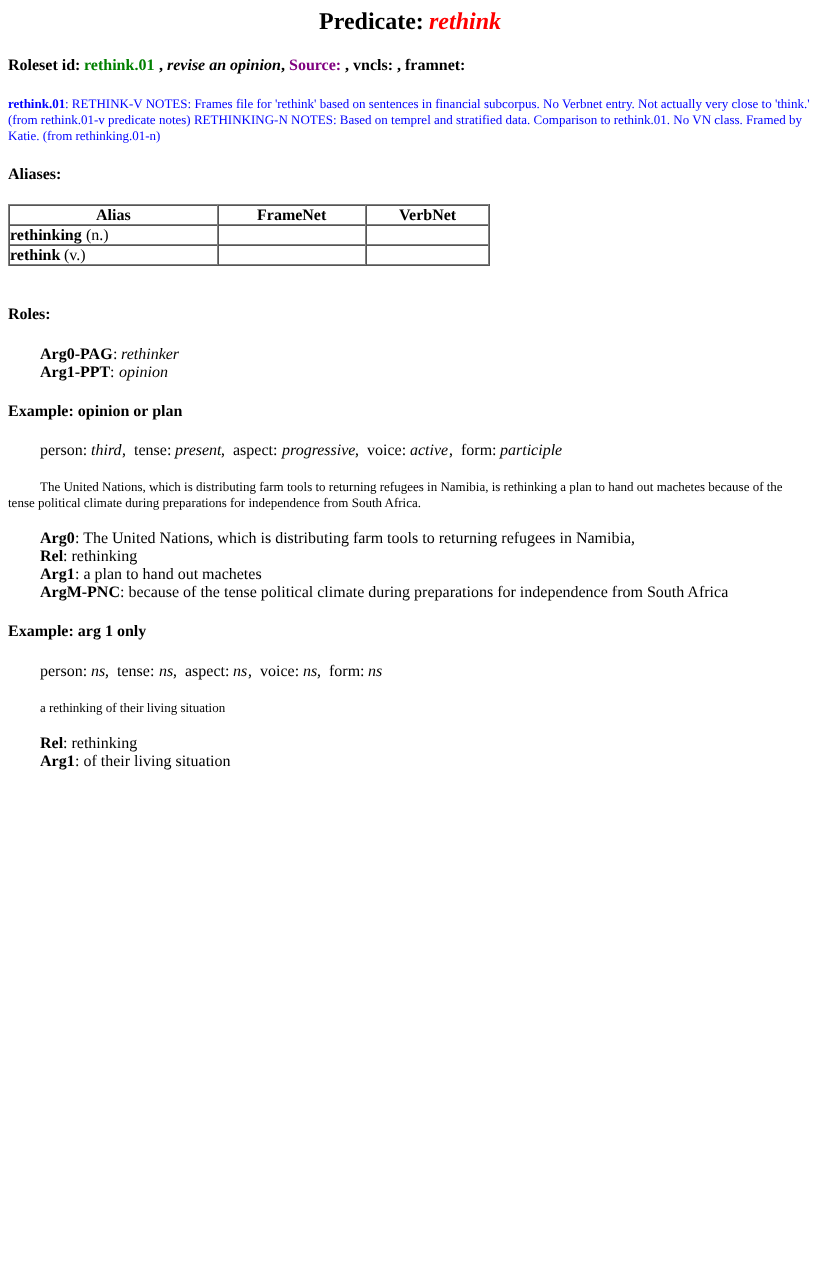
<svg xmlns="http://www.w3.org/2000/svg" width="820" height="1266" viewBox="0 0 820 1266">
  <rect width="100%" height="100%" fill="rgb(255,255,255)"/>
  <text x="319" y="29" font-family="Liberation Serif" font-size="24" font-weight="bold" fill="rgb(0,0,0)">Predicate:</text>
  <text x="429" y="29" font-family="Liberation Serif" font-size="24" font-weight="bold" font-style="italic" fill="rgb(255,0,0)">rethink</text>
  <text x="8" y="70" font-family="Liberation Serif" font-size="16" font-weight="bold" fill="rgb(0,0,0)">Roleset id:</text>
  <text x="84" y="70" font-family="Liberation Serif" font-size="16" font-weight="bold" fill="rgb(0,128,0)">rethink.01</text>
  <text x="159" y="70" font-family="Liberation Serif" font-size="16" font-weight="bold" fill="rgb(0,0,0)">,</text>
  <text x="167" y="70" font-family="Liberation Serif" font-size="16" font-weight="bold" font-style="italic" fill="rgb(0,0,0)">revise an opinion</text>
  <text x="281" y="70" font-family="Liberation Serif" font-size="16" font-weight="bold" fill="rgb(0,0,0)">,</text>
  <text x="289" y="70" font-family="Liberation Serif" font-size="16" font-weight="bold" fill="rgb(128,0,128)">Source:</text>
  <text x="345" y="70" font-family="Liberation Serif" font-size="16" font-weight="bold" fill="rgb(0,0,0)">, vncls: , framnet:</text>
  <text x="8" y="108" font-family="Liberation Serif" font-size="13" font-weight="bold" fill="rgb(0,0,255)">rethink.01</text>
  <g font-family="Liberation Serif" font-size="13" fill="rgb(0,0,255)">
    <text x="65" y="108">: RETHINK-V NOTES: Frames file for 'rethink' based on sentences in financial subcorpus. No Verbnet entry. Not actually very close to 'think.'</text>
    <text>
      <tspan x="8" y="124">(from rethink.01-v predicate notes) RETHINKING-N NOTES: Based on temprel and stratified data. Comparison to rethink.01. No VN class. Framed by</tspan>
      <tspan x="8" y="140">Katie. (from rethinking.01-n)</tspan>
    </text>
  </g>
  <text x="8" y="179" font-family="Liberation Serif" font-size="16" font-weight="bold" fill="rgb(0,0,0)">Aliases:</text>
  <rect x="8" y="204" width="482" height="1" fill="rgb(128,128,128)"/>
  <rect x="489" y="204" width="1" height="62" fill="rgb(85,85,85)"/>
  <rect x="8" y="265" width="482" height="1" fill="rgb(85,85,85)"/>
  <rect x="8" y="204" width="1" height="62" fill="rgb(128,128,128)"/>
  <rect x="9" y="205" width="480" height="1" fill="rgb(85,85,85)"/>
  <rect x="217" y="205" width="1" height="20" fill="rgb(128,128,128)"/>
  <rect x="9" y="224" width="209" height="1" fill="rgb(128,128,128)"/>
  <rect x="9" y="205" width="1" height="20" fill="rgb(85,85,85)"/>
  <text x="96" y="220" font-family="Liberation Serif" font-size="16" font-weight="bold" fill="rgb(0,0,0)">Alias</text>
  <rect x="365" y="205" width="1" height="20" fill="rgb(128,128,128)"/>
  <rect x="218" y="224" width="148" height="1" fill="rgb(128,128,128)"/>
  <rect x="218" y="205" width="1" height="20" fill="rgb(85,85,85)"/>
  <text x="257" y="220" font-family="Liberation Serif" font-size="16" font-weight="bold" fill="rgb(0,0,0)">FrameNet</text>
  <rect x="488" y="205" width="1" height="20" fill="rgb(128,128,128)"/>
  <rect x="366" y="224" width="123" height="1" fill="rgb(128,128,128)"/>
  <rect x="366" y="205" width="1" height="20" fill="rgb(85,85,85)"/>
  <text x="399" y="220" font-family="Liberation Serif" font-size="16" font-weight="bold" fill="rgb(0,0,0)">VerbNet</text>
  <rect x="9" y="225" width="480" height="1" fill="rgb(85,85,85)"/>
  <rect x="217" y="225" width="1" height="20" fill="rgb(128,128,128)"/>
  <rect x="9" y="244" width="209" height="1" fill="rgb(128,128,128)"/>
  <rect x="9" y="225" width="1" height="20" fill="rgb(85,85,85)"/>
  <text x="10" y="240" font-family="Liberation Serif" font-size="16" font-weight="bold" fill="rgb(0,0,0)">rethinking</text>
  <text x="86" y="240" font-family="Liberation Serif" font-size="16" fill="rgb(0,0,0)">(n.)</text>
  <rect x="365" y="225" width="1" height="20" fill="rgb(128,128,128)"/>
  <rect x="218" y="244" width="148" height="1" fill="rgb(128,128,128)"/>
  <rect x="218" y="225" width="1" height="20" fill="rgb(85,85,85)"/>
  <rect x="488" y="225" width="1" height="20" fill="rgb(128,128,128)"/>
  <rect x="366" y="244" width="123" height="1" fill="rgb(128,128,128)"/>
  <rect x="366" y="225" width="1" height="20" fill="rgb(85,85,85)"/>
  <rect x="9" y="245" width="480" height="1" fill="rgb(85,85,85)"/>
  <rect x="217" y="245" width="1" height="20" fill="rgb(128,128,128)"/>
  <rect x="9" y="264" width="209" height="1" fill="rgb(128,128,128)"/>
  <rect x="9" y="245" width="1" height="20" fill="rgb(85,85,85)"/>
  <text x="10" y="260" font-family="Liberation Serif" font-size="16" font-weight="bold" fill="rgb(0,0,0)">rethink</text>
  <text x="64" y="260" font-family="Liberation Serif" font-size="16" fill="rgb(0,0,0)">(v.)</text>
  <rect x="365" y="245" width="1" height="20" fill="rgb(128,128,128)"/>
  <rect x="218" y="264" width="148" height="1" fill="rgb(128,128,128)"/>
  <rect x="218" y="245" width="1" height="20" fill="rgb(85,85,85)"/>
  <rect x="488" y="245" width="1" height="20" fill="rgb(128,128,128)"/>
  <rect x="366" y="264" width="123" height="1" fill="rgb(128,128,128)"/>
  <rect x="366" y="245" width="1" height="20" fill="rgb(85,85,85)"/>
  <g font-family="Liberation Serif" font-size="16" font-weight="bold" fill="rgb(0,0,0)">
    <text x="8" y="319">Roles:</text>
    <text x="40" y="359">Arg0-PAG</text>
  </g>
  <text x="113" y="359" font-family="Liberation Serif" font-size="16" fill="rgb(0,0,0)">:</text>
  <text x="121" y="359" font-family="Liberation Serif" font-size="16" font-style="italic" fill="rgb(0,0,0)">rethinker</text>
  <text x="40" y="377" font-family="Liberation Serif" font-size="16" font-weight="bold" fill="rgb(0,0,0)">Arg1-PPT</text>
  <text x="110" y="377" font-family="Liberation Serif" font-size="16" fill="rgb(0,0,0)">:</text>
  <text x="119" y="377" font-family="Liberation Serif" font-size="16" font-style="italic" fill="rgb(0,0,0)">opinion</text>
  <text x="8" y="416" font-family="Liberation Serif" font-size="16" font-weight="bold" fill="rgb(0,0,0)">Example: opinion or plan</text>
  <text x="40" y="455" font-family="Liberation Serif" font-size="16" fill="rgb(0,0,0)">person:</text>
  <text x="91" y="455" font-family="Liberation Serif" font-size="16" font-style="italic" fill="rgb(0,0,0)">third</text>
  <text x="122" y="455" font-family="Liberation Serif" font-size="16" fill="rgb(0,0,0)" xml:space="preserve">,  tense:</text>
  <text x="175" y="455" font-family="Liberation Serif" font-size="16" font-style="italic" fill="rgb(0,0,0)">present</text>
  <text x="221" y="455" font-family="Liberation Serif" font-size="16" fill="rgb(0,0,0)" xml:space="preserve">,  aspect:</text>
  <text x="282" y="455" font-family="Liberation Serif" font-size="16" font-style="italic" fill="rgb(0,0,0)">progressive</text>
  <text x="355" y="455" font-family="Liberation Serif" font-size="16" fill="rgb(0,0,0)" xml:space="preserve">,  voice:</text>
  <text x="410" y="455" font-family="Liberation Serif" font-size="16" font-style="italic" fill="rgb(0,0,0)">active</text>
  <text x="449" y="455" font-family="Liberation Serif" font-size="16" fill="rgb(0,0,0)" xml:space="preserve">,  form:</text>
  <text x="500" y="455" font-family="Liberation Serif" font-size="16" font-style="italic" fill="rgb(0,0,0)">participle</text>
  <g font-family="Liberation Serif" font-size="13" fill="rgb(0,0,0)">
    <text x="40" y="491">The United Nations, which is distributing farm tools to returning refugees in Namibia, is rethinking a plan to hand out machetes because of the</text>
    <text x="8" y="507">tense political climate during preparations for independence from South Africa.</text>
  </g>
  <text x="40" y="543" font-family="Liberation Serif" font-size="16" font-weight="bold" fill="rgb(0,0,0)">Arg0</text>
  <text x="75" y="543" font-family="Liberation Serif" font-size="16" fill="rgb(0,0,0)">: The United Nations, which is distributing farm tools to returning refugees in Namibia,</text>
  <text x="40" y="561" font-family="Liberation Serif" font-size="16" font-weight="bold" fill="rgb(0,0,0)">Rel</text>
  <text x="63" y="561" font-family="Liberation Serif" font-size="16" fill="rgb(0,0,0)">: rethinking</text>
  <text x="40" y="579" font-family="Liberation Serif" font-size="16" font-weight="bold" fill="rgb(0,0,0)">Arg1</text>
  <text x="75" y="579" font-family="Liberation Serif" font-size="16" fill="rgb(0,0,0)">: a plan to hand out machetes</text>
  <text x="40" y="597" font-family="Liberation Serif" font-size="16" font-weight="bold" fill="rgb(0,0,0)">ArgM-PNC</text>
  <text x="120" y="597" font-family="Liberation Serif" font-size="16" fill="rgb(0,0,0)">: because of the tense political climate during preparations for independence from South Africa</text>
  <text x="8" y="636" font-family="Liberation Serif" font-size="16" font-weight="bold" fill="rgb(0,0,0)">Example: arg 1 only</text>
  <text x="40" y="676" font-family="Liberation Serif" font-size="16" fill="rgb(0,0,0)">person:</text>
  <text x="91" y="676" font-family="Liberation Serif" font-size="16" font-style="italic" fill="rgb(0,0,0)">ns</text>
  <text x="105" y="676" font-family="Liberation Serif" font-size="16" fill="rgb(0,0,0)" xml:space="preserve">,  tense:</text>
  <text x="159" y="676" font-family="Liberation Serif" font-size="16" font-style="italic" fill="rgb(0,0,0)">ns</text>
  <text x="173" y="676" font-family="Liberation Serif" font-size="16" fill="rgb(0,0,0)" xml:space="preserve">,  aspect:</text>
  <text x="233" y="676" font-family="Liberation Serif" font-size="16" font-style="italic" fill="rgb(0,0,0)">ns</text>
  <text x="248" y="676" font-family="Liberation Serif" font-size="16" fill="rgb(0,0,0)" xml:space="preserve">,  voice:</text>
  <text x="303" y="676" font-family="Liberation Serif" font-size="16" font-style="italic" fill="rgb(0,0,0)">ns</text>
  <text x="317" y="676" font-family="Liberation Serif" font-size="16" fill="rgb(0,0,0)" xml:space="preserve">,  form:</text>
  <text x="368" y="676" font-family="Liberation Serif" font-size="16" font-style="italic" fill="rgb(0,0,0)">ns</text>
  <text x="40" y="712" font-family="Liberation Serif" font-size="13" fill="rgb(0,0,0)">a rethinking of their living situation</text>
  <text x="40" y="748" font-family="Liberation Serif" font-size="16" font-weight="bold" fill="rgb(0,0,0)">Rel</text>
  <text x="63" y="748" font-family="Liberation Serif" font-size="16" fill="rgb(0,0,0)">: rethinking</text>
  <text x="40" y="766" font-family="Liberation Serif" font-size="16" font-weight="bold" fill="rgb(0,0,0)">Arg1</text>
  <text x="75" y="766" font-family="Liberation Serif" font-size="16" fill="rgb(0,0,0)">: of their living situation</text>
</svg>
